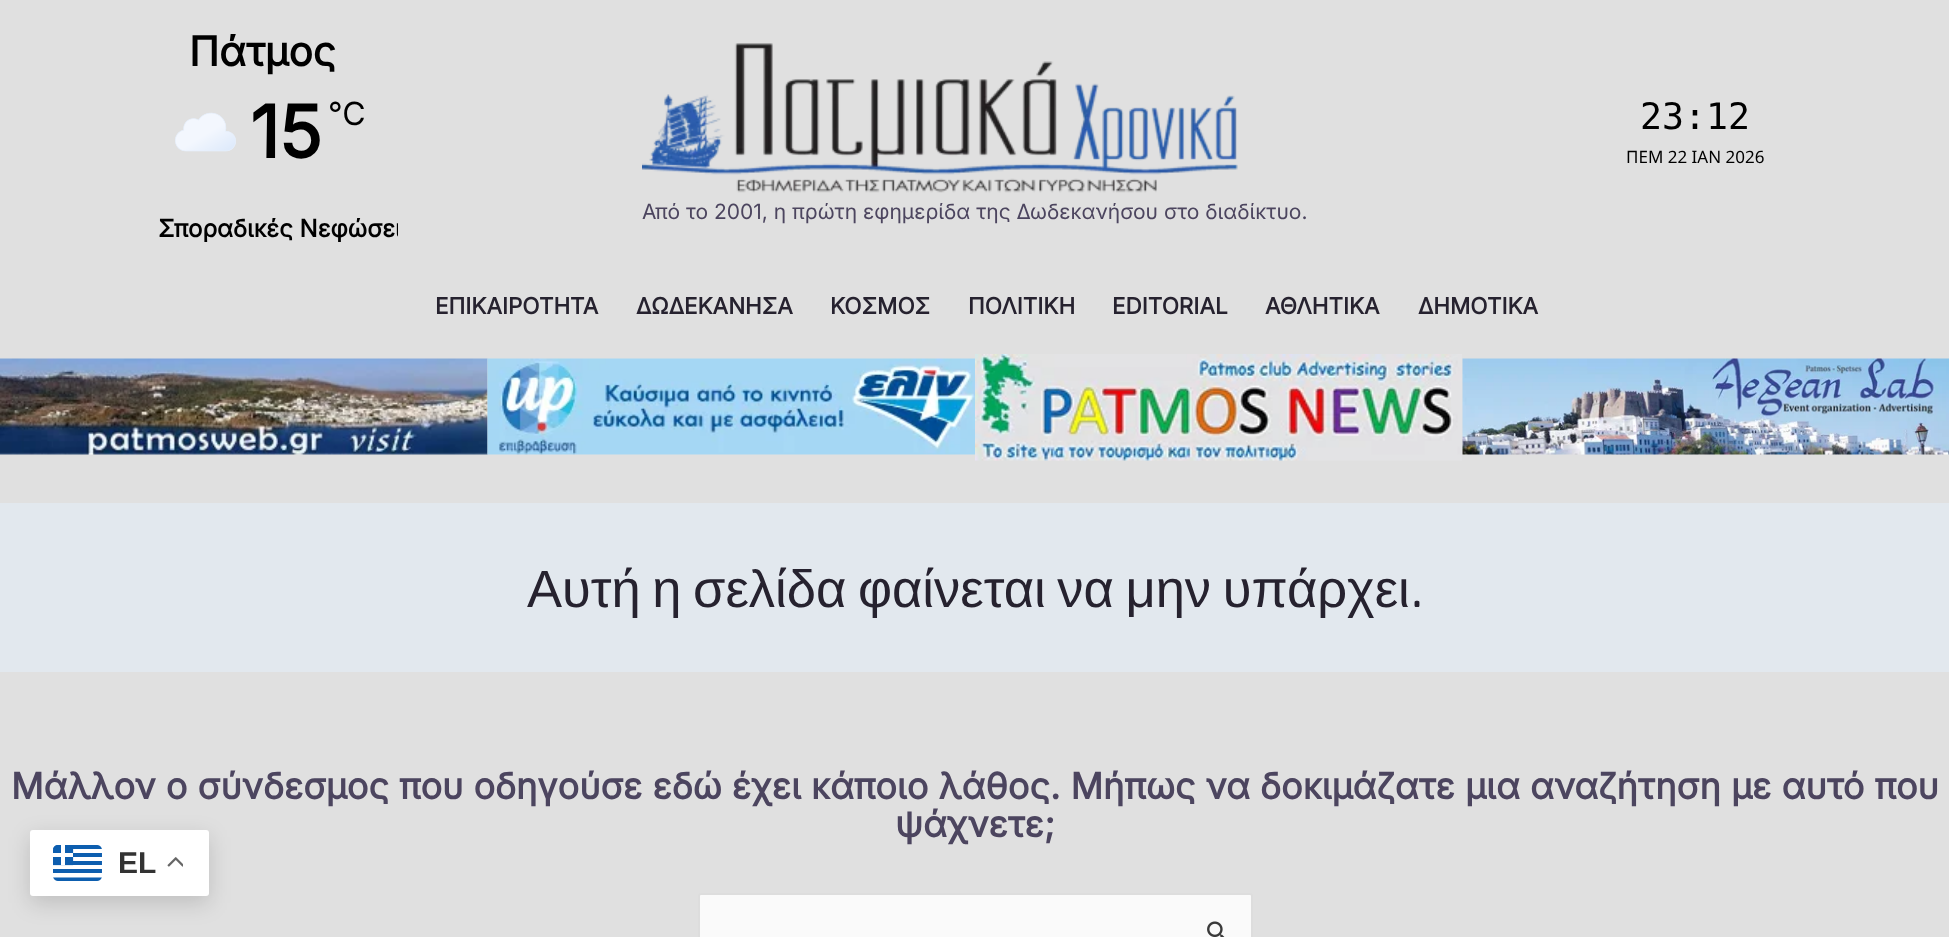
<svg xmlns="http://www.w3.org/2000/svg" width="1949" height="937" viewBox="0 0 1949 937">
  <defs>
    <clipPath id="clip1"><rect x="128" y="0" width="270" height="261" rx="12"/></clipPath>
  </defs>
  <rect width="100%" height="100%" fill="rgb(224,224,224)"/>
  <text x="189" y="66" font-family="Inter" font-size="40.5" font-weight="bold" fill="rgb(0,0,0)">Πάτμος</text>
  <image x="175" y="112" width="61" height="40" href="pic1.png"/>
  <text x="250" y="158" font-family="Inter" font-size="72" font-weight="bold" fill="rgb(0,0,0)">15</text>
  <text x="328" y="125" font-family="Inter" font-size="32" fill="rgb(0,0,0)">°C</text>
  <g clip-path="url(#clip1)">
    <text x="158" y="237" font-family="Inter" font-size="24" font-weight="bold" fill="rgb(0,0,0)">Σποραδικές Νεφώσει</text>
  </g>
  <text x="1640" y="129" font-family="DejaVu Sans Mono" font-size="36.5" fill="rgb(0,0,0)">23:12</text>
  <text x="1626" y="163" font-family="Noto Sans" font-size="17" fill="rgb(0,0,0)">ΠΕΜ 22 ΙΑΝ 2026</text>
  <image x="642" y="43" width="596" height="150" href="pic2.png"/>
  <text x="642" y="219" font-family="Inter" font-size="21" fill="rgb(76,69,95)">Από το 2001, η πρώτη εφημερίδα της Δωδεκανήσου στο διαδίκτυο.</text>
  <g font-family="Inter" font-size="22.5" font-weight="bold" fill="rgb(38,34,47)">
    <text x="435" y="314">ΕΠΙΚΑΙΡΟΤΗΤΑ</text>
    <text x="636" y="314">ΔΩΔΕΚΑΝΗΣΑ</text>
    <text x="830" y="314">ΚΟΣΜΟΣ</text>
    <text x="968" y="314">ΠΟΛΙΤΙΚΗ</text>
    <text x="1112" y="314">EDITORIAL</text>
    <text x="1265" y="314">ΑΘΛΗΤΙΚΑ</text>
    <text x="1418" y="314">ΔΗΜΟΤΙΚΑ</text>
  </g>
  <image x="0" y="358" width="488" height="97" href="pic3.png"/>
  <image x="487" y="358" width="488" height="97" href="pic4.png"/>
  <image x="975" y="354" width="487" height="107" href="pic5.png"/>
  <image x="1462" y="358" width="487" height="97" href="pic6.png"/>
  <rect x="0" y="503" width="1949" height="169" fill="rgb(226,232,238)"/>
  <text x="527" y="607" word-spacing="-3" font-family="Liberation Sans" font-size="52.5" fill="rgb(38,34,47)">Αυτή η σελίδα φαίνεται να μην υπάρχει</text>
  <text x="1411" y="607" font-family="'Exo 2'" font-size="52.5" fill="rgb(38,34,47)">.</text>
  <g font-family="Inter" font-size="36" font-weight="bold" fill="rgb(76,69,95)">
    <text x="11" y="799">Μάλλον ο σύνδεσμος που οδηγούσε εδώ έχει κάποιο λάθος. Μήπως να δοκιμάζατε μια αναζήτηση με αυτό που</text>
    <text x="895" y="837">ψάχνετε;</text>
  </g>
  <rect x="699" y="894" width="553" height="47" rx="2" fill="rgb(250,250,250)" stroke="rgb(221,221,221)" stroke-width="2"/>
  <image x="1207" y="921" width="18" height="16" href="pic7.png"/>
  <rect x="30" y="837" width="179" height="66" rx="3" fill="rgba(0,0,0,0.15)" filter="blur(11px)"/>
  <rect x="30" y="830" width="179" height="66" rx="3" fill="rgb(255,255,255)"/>
  <image x="53" y="845" width="49" height="36" href="pic8.png"/>
  <text x="118" y="873" font-family="Liberation Sans" font-size="30" font-weight="bold" fill="rgb(51,51,51)">EL</text>
  <image x="167" y="857" width="16" height="10" href="pic9.png"/>
</svg>
